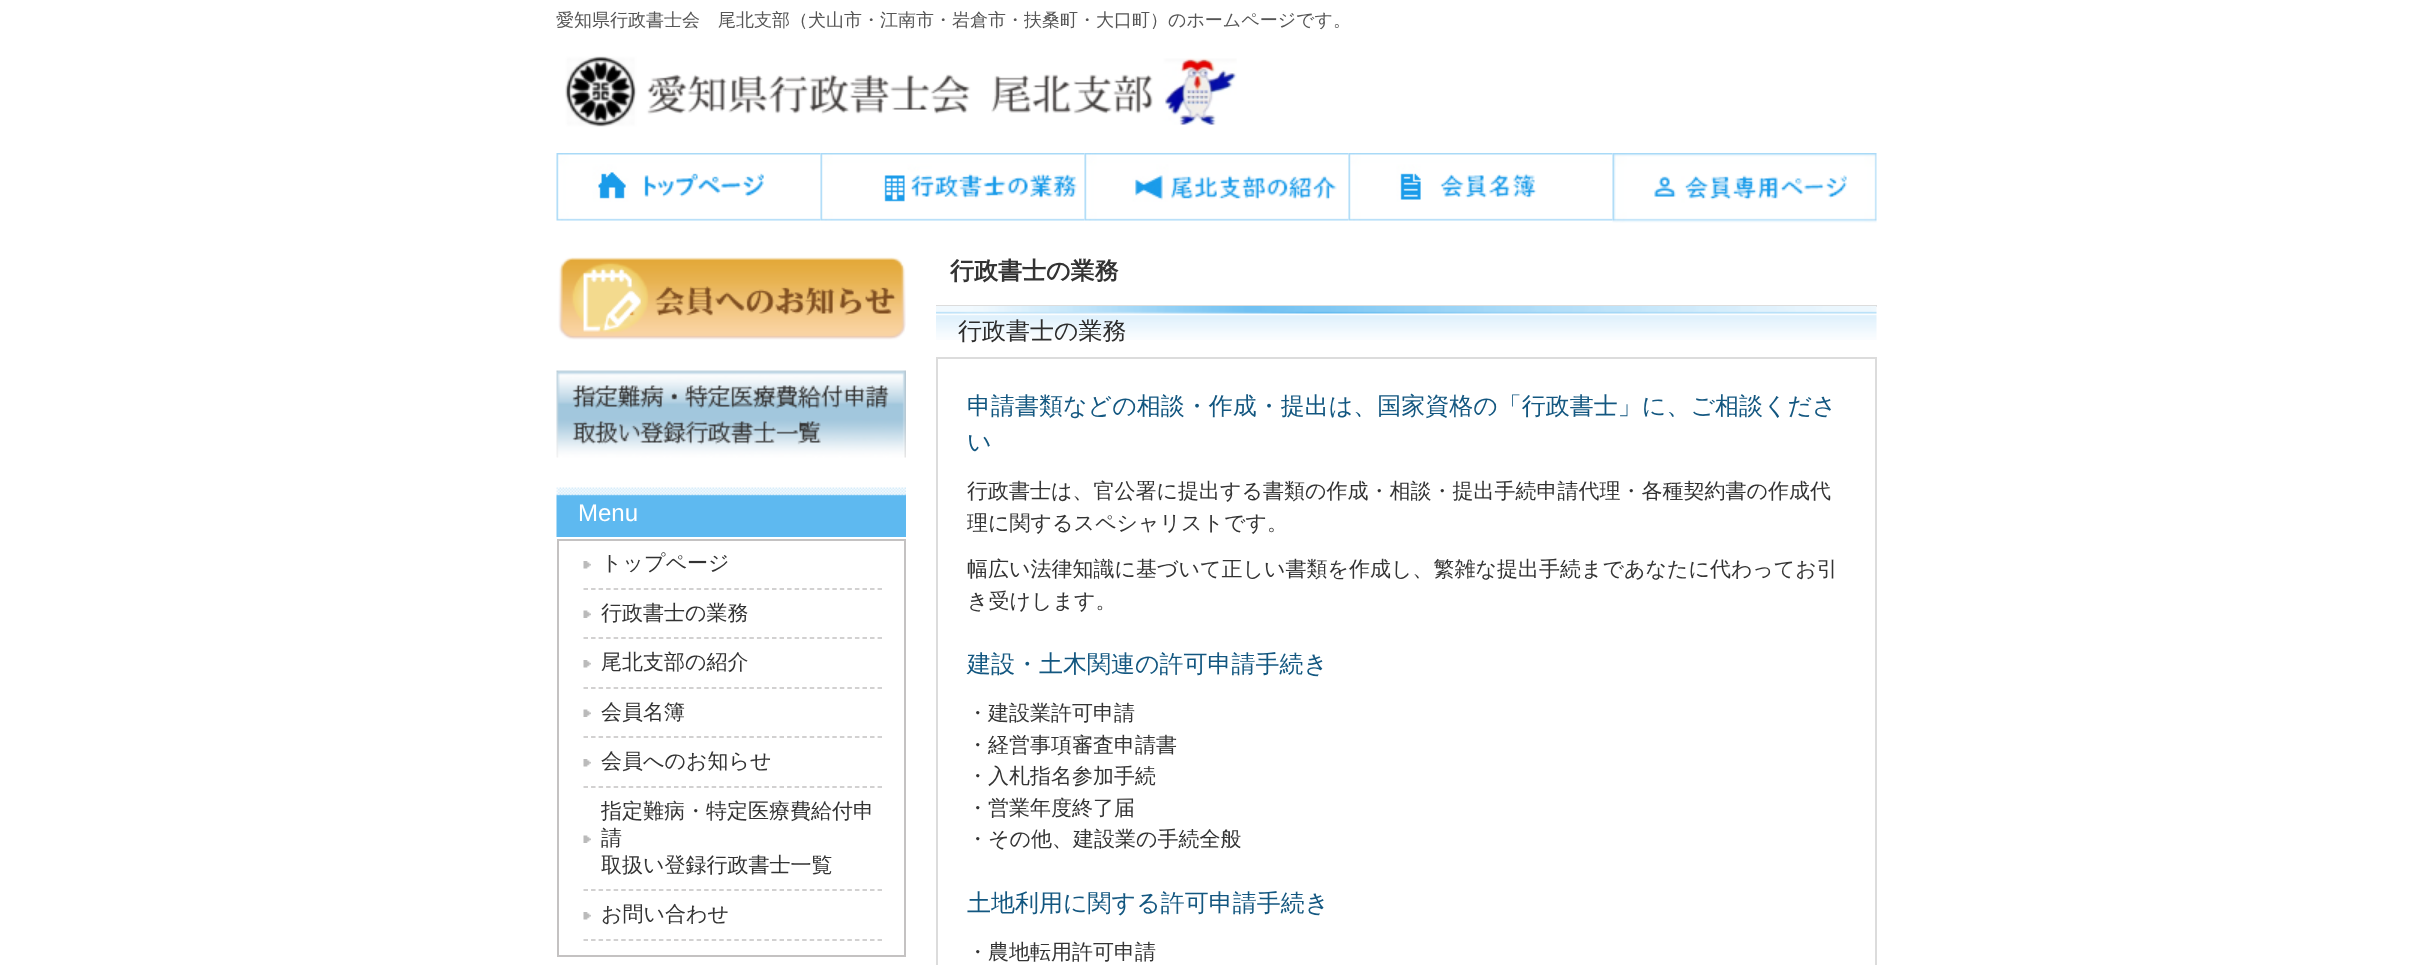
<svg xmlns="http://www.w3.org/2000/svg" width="2431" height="965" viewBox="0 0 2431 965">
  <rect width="100%" height="100%" fill="rgb(255,255,255)"/>
  <text x="556" y="26" font-family="WenQuanYi Zen Hei" font-size="18" font-weight="500" fill="rgb(85,85,85)">愛知県行政書士会　尾北支部（犬山市・江南市・岩倉市・扶桑町・大口町）のホームページです。</text>
  <image x="565" y="56" width="672" height="71" href="pic1.png"/>
  <image x="556" y="153" width="265" height="68" href="pic2.png"/>
  <image x="820" y="153" width="265" height="68" href="pic3.png"/>
  <image x="1084" y="153" width="265" height="68" href="pic4.png"/>
  <image x="1348" y="153" width="265" height="68" href="pic5.png"/>
  <image x="1612" y="153" width="265" height="70" href="pic6.png"/>
  <image x="558" y="257" width="348" height="83" href="pic7.png"/>
  <image x="556" y="370" width="350" height="88" href="pic8.png"/>
  <image x="556" y="487" width="350" height="50" href="pic9.png"/>
  <text x="578" y="521" font-family="Liberation Sans" font-size="24" fill="rgb(255,255,255)">Menu</text>
  <rect x="558" y="540" width="347" height="416" fill="none" stroke="rgb(196,194,194)" stroke-width="2"/>
  <path d="M583.5 589H882" fill="none" stroke="rgb(196,194,194)" stroke-width="1.5" stroke-dasharray="4.5 3.04"/>
  <image x="583" y="561" width="8" height="8" href="pic10.png"/>
  <text x="601" y="570" font-family="WenQuanYi Zen Hei" font-size="21" font-weight="500" fill="rgb(51,51,51)">トップページ</text>
  <path d="M583.5 638H882" fill="none" stroke="rgb(196,194,194)" stroke-width="1.5" stroke-dasharray="4.5 3.04"/>
  <image x="583" y="610" width="8" height="8" href="pic11.png"/>
  <text x="601" y="620" font-family="WenQuanYi Zen Hei" font-size="21" font-weight="500" fill="rgb(51,51,51)">行政書士の業務</text>
  <path d="M583.5 688H882" fill="none" stroke="rgb(196,194,194)" stroke-width="1.5" stroke-dasharray="4.5 3.04"/>
  <image x="583" y="660" width="8" height="8" href="pic10.png"/>
  <text x="601" y="669" font-family="WenQuanYi Zen Hei" font-size="21" font-weight="500" fill="rgb(51,51,51)">尾北支部の紹介</text>
  <path d="M583.5 737H882" fill="none" stroke="rgb(196,194,194)" stroke-width="1.5" stroke-dasharray="4.5 3.04"/>
  <image x="583" y="709" width="8" height="8" href="pic11.png"/>
  <text x="601" y="719" font-family="WenQuanYi Zen Hei" font-size="21" font-weight="500" fill="rgb(51,51,51)">会員名簿</text>
  <path d="M583.5 787H882" fill="none" stroke="rgb(196,194,194)" stroke-width="1.5" stroke-dasharray="4.5 3.04"/>
  <image x="583" y="759" width="8" height="8" href="pic10.png"/>
  <text x="601" y="768" font-family="WenQuanYi Zen Hei" font-size="21" font-weight="500" fill="rgb(51,51,51)">会員へのお知らせ</text>
  <path d="M583.5 890H882" fill="none" stroke="rgb(196,194,194)" stroke-width="1.5" stroke-dasharray="4.5 3.04"/>
  <image x="583" y="835" width="8" height="8" href="pic11.png"/>
  <g font-family="WenQuanYi Zen Hei" font-size="21" font-weight="500" fill="rgb(51,51,51)">
    <text>
      <tspan x="601" y="818">指定難病・特定医療費給付申</tspan>
      <tspan x="601" y="845">請</tspan>
      <tspan x="601" y="872">取扱い登録行政書士一覧</tspan>
    </text>
  </g>
  <path d="M583.5 940H882" fill="none" stroke="rgb(196,194,194)" stroke-width="1.5" stroke-dasharray="4.5 3.04"/>
  <image x="583" y="912" width="8" height="8" href="pic10.png"/>
  <text x="601" y="921" font-family="WenQuanYi Zen Hei" font-size="21" font-weight="500" fill="rgb(51,51,51)">お問い合わせ</text>
  <rect x="936" y="305" width="941" height="2" fill="rgb(220,220,220)"/>
  <text x="950" y="279" font-family="WenQuanYi Zen Hei" font-size="24" font-weight="bold" fill="rgb(51,51,51)">行政書士の業務</text>
  <image x="936" y="306" width="941" height="34" href="pic12.png"/>
  <text x="958" y="339" font-family="WenQuanYi Zen Hei" font-size="24" font-weight="500" fill="rgb(44,44,44)">行政書士の業務</text>
  <rect x="937" y="358" width="939" height="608" fill="none" stroke="rgb(220,220,220)" stroke-width="2"/>
  <g font-family="WenQuanYi Zen Hei" font-size="24" font-weight="500" fill="rgb(19,87,128)">
    <text>
      <tspan x="967" y="414">申請書類などの相談・作成・提出は、国家資格の「行政書士」に、ご相談くださ</tspan>
      <tspan x="967" y="450">い</tspan>
    </text>
  </g>
  <g font-family="WenQuanYi Zen Hei" font-size="21" font-weight="500" fill="rgb(51,51,51)">
    <text>
      <tspan x="967" y="498">行政書士は、官公署に提出する書類の作成・相談・提出手続申請代理・各種契約書の作成代</tspan>
      <tspan x="967" y="530">理に関するスペシャリストです。</tspan>
    </text>
    <text>
      <tspan x="967" y="576">幅広い法律知識に基づいて正しい書類を作成し、繁雑な提出手続まであなたに代わってお引</tspan>
      <tspan x="967" y="608">き受けします。</tspan>
    </text>
  </g>
  <text x="967" y="672" font-family="WenQuanYi Zen Hei" font-size="24" font-weight="500" fill="rgb(19,87,128)">建設・土木関連の許可申請手続き</text>
  <g font-family="WenQuanYi Zen Hei" font-size="21" font-weight="500" fill="rgb(51,51,51)">
    <text>
      <tspan x="967" y="720">・建設業許可申請</tspan>
      <tspan x="967" y="752">・経営事項審査申請書</tspan>
      <tspan x="967" y="783">・入札指名参加手続</tspan>
      <tspan x="967" y="815">・営業年度終了届</tspan>
      <tspan x="967" y="846">・その他、建設業の手続全般</tspan>
    </text>
  </g>
  <text x="967" y="911" font-family="WenQuanYi Zen Hei" font-size="24" font-weight="500" fill="rgb(19,87,128)">土地利用に関する許可申請手続き</text>
  <text x="967" y="959" font-family="WenQuanYi Zen Hei" font-size="21" font-weight="500" fill="rgb(51,51,51)">・農地転用許可申請</text>
</svg>
